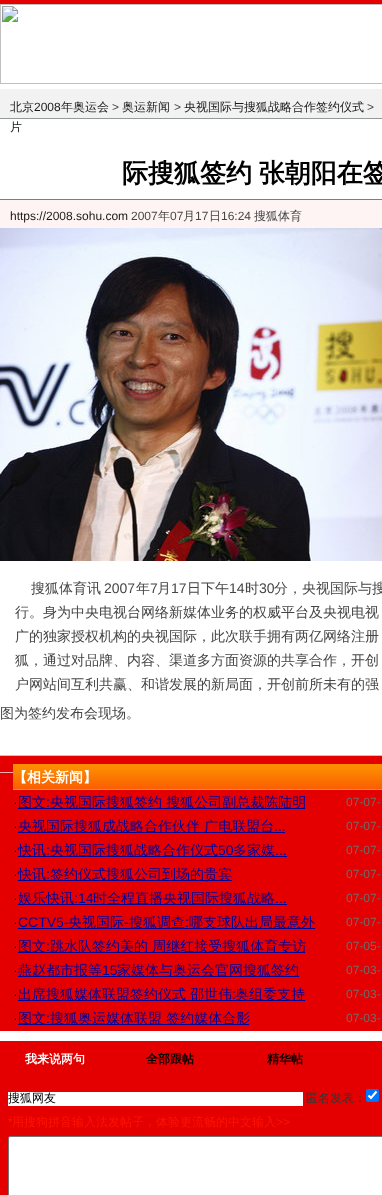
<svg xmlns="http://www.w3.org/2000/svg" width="382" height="1195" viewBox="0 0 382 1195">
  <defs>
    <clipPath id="clip1"><rect x="8" y="1092" width="295" height="14"/></clipPath>
  </defs>
  <rect width="100%" height="100%" fill="rgb(228,0,1)"/>
  <rect x="1" y="5" width="381" height="78" fill="rgb(255,255,255)"/>
  <image x="0" y="4" width="382" height="80" href="pic1.png"/>
  <rect x="0" y="84" width="382" height="5" fill="rgb(255,255,255)"/>
  <rect x="0" y="89" width="382" height="29" fill="rgb(241,242,241)"/>
  <rect x="0" y="118" width="382" height="1" fill="rgb(147,153,149)"/>
  <text x="10" y="111" font-family="WenQuanYi Zen Hei" font-size="12" font-weight="500" fill="rgb(25,25,25)">北京</text>
  <text x="34" y="111" font-family="Liberation Sans" font-size="12" fill="rgb(25,25,25)">2008</text>
  <text x="61" y="111" font-family="WenQuanYi Zen Hei" font-size="12" font-weight="500" fill="rgb(25,25,25)">年奥运会</text>
  <text x="112" y="111" font-family="Liberation Sans" font-size="12" fill="rgb(69,69,69)">&gt;</text>
  <text x="122" y="111" font-family="WenQuanYi Zen Hei" font-size="12" font-weight="500" fill="rgb(25,25,25)">奥运新闻</text>
  <text x="174" y="111" font-family="Liberation Sans" font-size="12" fill="rgb(69,69,69)">&gt;</text>
  <text x="184" y="111" font-family="WenQuanYi Zen Hei" font-size="12" font-weight="500" fill="rgb(25,25,25)">央视国际与搜狐战略合作签约仪式</text>
  <text x="367" y="111" font-family="Liberation Sans" font-size="12" fill="rgb(69,69,69)">&gt;</text>
  <rect x="0" y="119" width="382" height="80" fill="rgb(255,255,255)"/>
  <text x="10" y="131" font-family="WenQuanYi Zen Hei" font-size="12" font-weight="500" fill="rgb(25,25,25)">片</text>
  <text x="122" y="182" word-spacing="-1" font-family="WenQuanYi Zen Hei" font-size="26" font-weight="bold" fill="rgb(0,0,0)">际搜狐签约 张朝阳在签</text>
  <rect x="0" y="200" width="382" height="28" fill="rgb(255,244,244)"/>
  <rect x="0" y="199" width="382" height="1" fill="rgb(250,88,0)"/>
  <text x="10" y="220" font-family="Liberation Sans" font-size="12" fill="rgb(25,25,25)">https://2008.sohu.com</text>
  <text x="131" y="220" font-family="Liberation Sans" font-size="12" fill="rgb(69,69,69)">2007</text>
  <text x="158" y="220" font-family="WenQuanYi Zen Hei" font-size="12" font-weight="500" fill="rgb(69,69,69)">年</text>
  <text x="170" y="220" font-family="Liberation Sans" font-size="12" fill="rgb(69,69,69)">07</text>
  <text x="183" y="220" font-family="WenQuanYi Zen Hei" font-size="12" font-weight="500" fill="rgb(69,69,69)">月</text>
  <text x="195" y="220" font-family="Liberation Sans" font-size="12" fill="rgb(69,69,69)">17</text>
  <text x="209" y="220" font-family="WenQuanYi Zen Hei" font-size="12" font-weight="500" fill="rgb(69,69,69)">日</text>
  <text x="221" y="220" font-family="Liberation Sans" font-size="12" fill="rgb(69,69,69)">16:24</text>
  <text x="254" y="220" font-family="WenQuanYi Zen Hei" font-size="12" font-weight="500" fill="rgb(69,69,69)">搜狐体育</text>
  <rect x="0" y="561" width="382" height="194" fill="rgb(255,255,255)"/>
  <image x="0" y="228" width="382" height="333" href="pic2.png"/>
  <text x="31" y="593" font-family="WenQuanYi Zen Hei" font-size="14" font-weight="500" fill="rgb(69,69,69)">搜狐体育讯</text>
  <text x="104" y="593" font-family="Liberation Sans" font-size="14" fill="rgb(69,69,69)">2007</text>
  <text x="136" y="593" font-family="WenQuanYi Zen Hei" font-size="14" font-weight="500" fill="rgb(69,69,69)">年</text>
  <text x="150" y="593" font-family="Liberation Sans" font-size="14" fill="rgb(69,69,69)">7</text>
  <text x="157" y="593" font-family="WenQuanYi Zen Hei" font-size="14" font-weight="500" fill="rgb(69,69,69)">月</text>
  <text x="171" y="593" font-family="Liberation Sans" font-size="14" fill="rgb(69,69,69)">17</text>
  <text x="187" y="593" font-family="WenQuanYi Zen Hei" font-size="14" font-weight="500" fill="rgb(69,69,69)">日下午</text>
  <text x="229" y="593" font-family="Liberation Sans" font-size="14" fill="rgb(69,69,69)">14</text>
  <text x="245" y="593" font-family="WenQuanYi Zen Hei" font-size="14" font-weight="500" fill="rgb(69,69,69)">时</text>
  <text x="259" y="593" font-family="Liberation Sans" font-size="14" fill="rgb(69,69,69)">30</text>
  <g font-family="WenQuanYi Zen Hei" font-size="14" font-weight="500" fill="rgb(69,69,69)">
    <text x="274" y="593">分，央视国际与搜</text>
    <text>
      <tspan x="15" y="617">行。身为中央电视台网络新媒体业务的权威平台及央视电视</tspan>
      <tspan x="15" y="641">广的独家授权机构的央视国际，此次联手拥有两亿网络注册</tspan>
      <tspan x="15" y="665">狐，通过对品牌、内容、渠道多方面资源的共享合作，开创</tspan>
      <tspan x="15" y="689">户网站间互利共赢、和谐发展的新局面，开创前所未有的强</tspan>
    </text>
    <text x="0" y="718">图为签约发布会现场。</text>
  </g>
  <rect x="0" y="755" width="382" height="1" fill="rgb(251,173,173)"/>
  <rect x="0" y="772" width="13" height="1" fill="rgb(251,173,173)"/>
  <image x="13" y="764" width="369" height="26" href="pic3.png"/>
  <text x="13" y="782" font-family="WenQuanYi Zen Hei" font-size="14" font-weight="bold" fill="rgb(255,255,255)">【相关新闻】</text>
  <text x="13" y="807" font-family="Liberation Sans" font-size="14" fill="rgb(0,0,0)">·</text>
  <rect x="18" y="808" width="287" height="1" fill="rgb(0,0,153)"/>
  <text x="18" y="807" font-family="WenQuanYi Zen Hei" font-size="14" font-weight="500" fill="rgb(0,0,153)">图文</text>
  <text x="46" y="807" font-family="Liberation Sans" font-size="14" fill="rgb(0,0,153)">:</text>
  <text x="50" y="807" font-family="WenQuanYi Zen Hei" font-size="14" font-weight="500" fill="rgb(0,0,153)">央视国际搜狐签约 搜狐公司副总裁陈陆明</text>
  <text x="346" y="806" font-family="Liberation Sans" font-size="12" fill="rgb(109,109,109)">07-07-</text>
  <text x="13" y="831" font-family="Liberation Sans" font-size="14" fill="rgb(0,0,0)">·</text>
  <rect x="18" y="832" width="267" height="1" fill="rgb(0,0,153)"/>
  <text x="18" y="831" font-family="WenQuanYi Zen Hei" font-size="14" font-weight="500" fill="rgb(0,0,153)">央视国际搜狐成战略合作伙伴 广电联盟台</text>
  <text x="346" y="830" font-family="Liberation Sans" font-size="12" fill="rgb(109,109,109)">07-07-</text>
  <text x="274" y="831" font-family="Liberation Sans" font-size="14" fill="rgb(0,0,153)">...</text>
  <text x="13" y="855" font-family="Liberation Sans" font-size="14" fill="rgb(0,0,0)">·</text>
  <rect x="18" y="856" width="269" height="1" fill="rgb(0,0,153)"/>
  <text x="18" y="855" font-family="WenQuanYi Zen Hei" font-size="14" font-weight="500" fill="rgb(0,0,153)">快讯</text>
  <text x="46" y="855" font-family="Liberation Sans" font-size="14" fill="rgb(0,0,153)">:</text>
  <text x="50" y="855" font-family="WenQuanYi Zen Hei" font-size="14" font-weight="500" fill="rgb(0,0,153)">央视国际搜狐战略合作仪式</text>
  <text x="218" y="855" font-family="Liberation Sans" font-size="14" fill="rgb(0,0,153)">50</text>
  <text x="233" y="855" font-family="WenQuanYi Zen Hei" font-size="14" font-weight="500" fill="rgb(0,0,153)">多家媒</text>
  <text x="346" y="854" font-family="Liberation Sans" font-size="12" fill="rgb(109,109,109)">07-07-</text>
  <text x="275" y="855" font-family="Liberation Sans" font-size="14" fill="rgb(0,0,153)">...</text>
  <text x="13" y="879" font-family="Liberation Sans" font-size="14" fill="rgb(0,0,0)">·</text>
  <rect x="18" y="880" width="214" height="1" fill="rgb(0,0,153)"/>
  <text x="18" y="879" font-family="WenQuanYi Zen Hei" font-size="14" font-weight="500" fill="rgb(0,0,153)">快讯</text>
  <text x="46" y="879" font-family="Liberation Sans" font-size="14" fill="rgb(0,0,153)">:</text>
  <text x="50" y="879" font-family="WenQuanYi Zen Hei" font-size="14" font-weight="500" fill="rgb(0,0,153)">签约仪式搜狐公司到场的贵宾</text>
  <text x="346" y="878" font-family="Liberation Sans" font-size="12" fill="rgb(109,109,109)">07-07-</text>
  <text x="13" y="903" font-family="Liberation Sans" font-size="14" fill="rgb(0,0,0)">·</text>
  <rect x="18" y="904" width="269" height="1" fill="rgb(0,0,153)"/>
  <text x="18" y="903" font-family="WenQuanYi Zen Hei" font-size="14" font-weight="500" fill="rgb(0,0,153)">娱乐快讯</text>
  <text x="74" y="903" font-family="Liberation Sans" font-size="14" fill="rgb(0,0,153)">:14</text>
  <text x="93" y="903" font-family="WenQuanYi Zen Hei" font-size="14" font-weight="500" fill="rgb(0,0,153)">时全程直播央视国际搜狐战略</text>
  <text x="346" y="902" font-family="Liberation Sans" font-size="12" fill="rgb(109,109,109)">07-07-</text>
  <text x="275" y="903" font-family="Liberation Sans" font-size="14" fill="rgb(0,0,153)">...</text>
  <text x="13" y="927" font-family="Liberation Sans" font-size="14" fill="rgb(0,0,0)">·</text>
  <text x="18" y="927" font-family="Liberation Sans" font-size="14" fill="rgb(0,0,153)">CCTV5-</text>
  <rect x="18" y="928" width="297" height="1" fill="rgb(0,0,153)"/>
  <text x="68" y="927" font-family="WenQuanYi Zen Hei" font-size="14" font-weight="500" fill="rgb(0,0,153)">央视国际</text>
  <text x="124" y="927" font-family="Liberation Sans" font-size="14" fill="rgb(0,0,153)">-</text>
  <text x="129" y="927" font-family="WenQuanYi Zen Hei" font-size="14" font-weight="500" fill="rgb(0,0,153)">搜狐调查</text>
  <text x="185" y="927" font-family="Liberation Sans" font-size="14" fill="rgb(0,0,153)">:</text>
  <text x="189" y="927" font-family="WenQuanYi Zen Hei" font-size="14" font-weight="500" fill="rgb(0,0,153)">哪支球队出局最意外</text>
  <text x="346" y="926" font-family="Liberation Sans" font-size="12" fill="rgb(109,109,109)">07-07-</text>
  <text x="13" y="951" font-family="Liberation Sans" font-size="14" fill="rgb(0,0,0)">·</text>
  <rect x="18" y="952" width="287" height="1" fill="rgb(0,0,153)"/>
  <text x="18" y="951" font-family="WenQuanYi Zen Hei" font-size="14" font-weight="500" fill="rgb(0,0,153)">图文</text>
  <text x="46" y="951" font-family="Liberation Sans" font-size="14" fill="rgb(0,0,153)">:</text>
  <text x="50" y="951" font-family="WenQuanYi Zen Hei" font-size="14" font-weight="500" fill="rgb(0,0,153)">跳水队签约美的 周继红接受搜狐体育专访</text>
  <text x="346" y="950" font-family="Liberation Sans" font-size="12" fill="rgb(109,109,109)">07-05-</text>
  <text x="13" y="975" font-family="Liberation Sans" font-size="14" fill="rgb(0,0,0)">·</text>
  <rect x="18" y="976" width="281" height="1" fill="rgb(0,0,153)"/>
  <text x="18" y="975" font-family="WenQuanYi Zen Hei" font-size="14" font-weight="500" fill="rgb(0,0,153)">燕赵都市报等</text>
  <text x="102" y="975" font-family="Liberation Sans" font-size="14" fill="rgb(0,0,153)">15</text>
  <text x="117" y="975" font-family="WenQuanYi Zen Hei" font-size="14" font-weight="500" fill="rgb(0,0,153)">家媒体与奥运会官网搜狐签约</text>
  <text x="346" y="974" font-family="Liberation Sans" font-size="12" fill="rgb(109,109,109)">07-03-</text>
  <text x="13" y="999" font-family="Liberation Sans" font-size="14" fill="rgb(0,0,0)">·</text>
  <rect x="18" y="1000" width="287" height="1" fill="rgb(0,0,153)"/>
  <text x="18" y="999" font-family="WenQuanYi Zen Hei" font-size="14" font-weight="500" fill="rgb(0,0,153)">出席搜狐媒体联盟签约仪式 邵世伟</text>
  <text x="232" y="999" font-family="Liberation Sans" font-size="14" fill="rgb(0,0,153)">:</text>
  <text x="235" y="999" font-family="WenQuanYi Zen Hei" font-size="14" font-weight="500" fill="rgb(0,0,153)">奥组委支持</text>
  <text x="346" y="998" font-family="Liberation Sans" font-size="12" fill="rgb(109,109,109)">07-03-</text>
  <text x="13" y="1023" font-family="Liberation Sans" font-size="14" fill="rgb(0,0,0)">·</text>
  <rect x="18" y="1024" width="231" height="1" fill="rgb(0,0,153)"/>
  <text x="18" y="1023" font-family="WenQuanYi Zen Hei" font-size="14" font-weight="500" fill="rgb(0,0,153)">图文</text>
  <text x="46" y="1023" font-family="Liberation Sans" font-size="14" fill="rgb(0,0,153)">:</text>
  <text x="50" y="1023" font-family="WenQuanYi Zen Hei" font-size="14" font-weight="500" fill="rgb(0,0,153)">搜狐奥运媒体联盟 签约媒体合影</text>
  <text x="346" y="1022" font-family="Liberation Sans" font-size="12" fill="rgb(109,109,109)">07-03-</text>
  <rect x="0" y="1031" width="382" height="10" fill="rgb(255,255,255)"/>
  <text x="25" y="1063" font-family="WenQuanYi Zen Hei" font-size="12" font-weight="bold" fill="rgb(255,255,255)">我来说两句</text>
  <g font-family="WenQuanYi Zen Hei" font-size="12" font-weight="bold" fill="rgb(0,0,0)">
    <text x="146" y="1063">全部跟帖</text>
    <text x="267" y="1063">精华帖</text>
  </g>
  <rect x="8" y="1092" width="295" height="14" fill="rgb(255,255,255)"/>
  <g clip-path="url(#clip1)">
    <text x="8" y="1102" font-family="WenQuanYi Zen Hei" font-size="12" font-weight="500" fill="rgb(0,0,0)">搜狐网友</text>
  </g>
  <text x="306" y="1102" font-family="WenQuanYi Zen Hei" font-size="12" font-weight="500" fill="rgb(53,53,53)">匿名发表：</text>
  <rect x="366" y="1089" width="13" height="13" rx="2" fill="rgb(0,117,255)"/>
  <path d="M368.5 1095.5L371 1098L376.5 1091.5" fill="none" stroke="rgb(255,255,255)" stroke-width="2.1"/>
  <text x="8" y="1126" font-family="Liberation Sans" font-size="12" fill="rgb(254,18,0)">*</text>
  <text x="12" y="1126" font-family="WenQuanYi Zen Hei" font-size="12" font-weight="500" fill="rgb(254,18,0)">用搜狗拼音输入法发帖子，体验更流畅的中文输入</text>
  <text x="276" y="1126" font-family="Liberation Sans" font-size="12" fill="rgb(254,18,0)">&gt;&gt;</text>
  <rect x="8.5" y="1136.5" width="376" height="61" rx="1.5" fill="rgb(255,255,255)" stroke="rgb(118,118,118)"/>
</svg>
